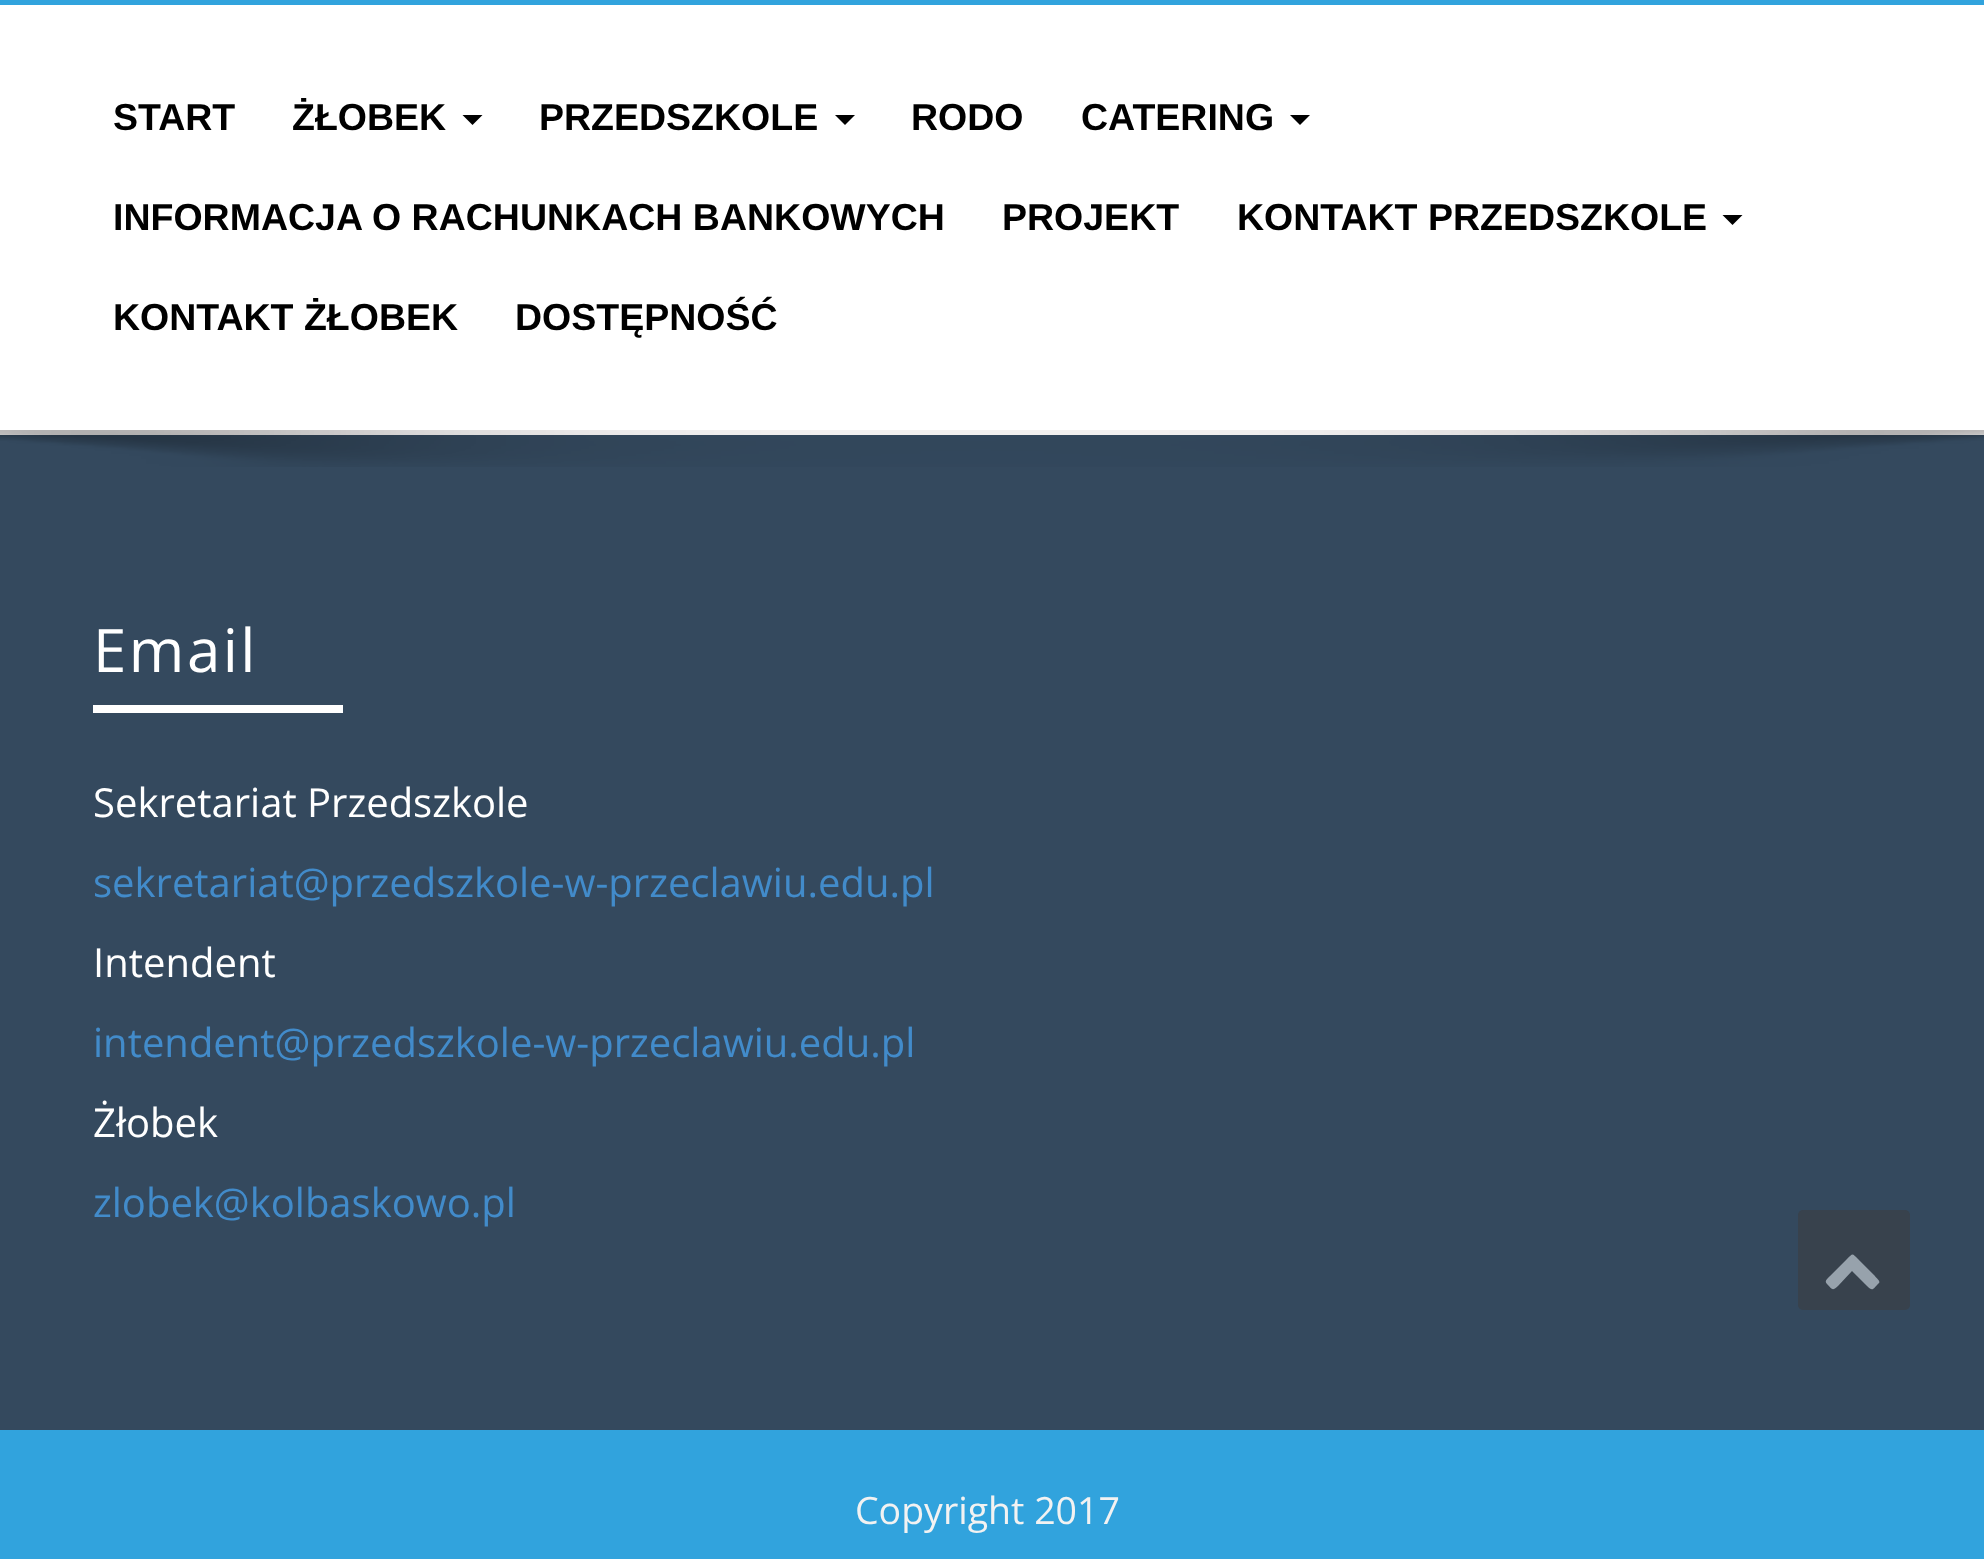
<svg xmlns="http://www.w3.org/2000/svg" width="1984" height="1559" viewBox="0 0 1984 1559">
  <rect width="100%" height="100%" fill="rgb(52,73,94)"/>
  <rect x="0" y="5" width="1984" height="425" fill="rgb(255,255,255)"/>
  <rect x="0" y="0" width="1984" height="5" fill="rgb(49,163,221)"/>
  <rect x="0" y="430" width="1984" height="5" fill="rgb(247,245,245)"/>
  <g font-family="Liberation Sans" font-size="37.5" font-weight="bold" fill="rgb(0,0,0)">
    <text x="113" y="130">START</text>
    <text x="292" y="130">ŻŁOBEK</text>
  </g>
  <path d="M462.5 115H482.5L472.5 125Z" fill="rgb(0,0,0)"/>
  <text x="539" y="130" font-family="Liberation Sans" font-size="37.5" font-weight="bold" fill="rgb(0,0,0)">PRZEDSZKOLE</text>
  <path d="M835 115H855L845 125Z" fill="rgb(0,0,0)"/>
  <g font-family="Liberation Sans" font-size="37.5" font-weight="bold" fill="rgb(0,0,0)">
    <text x="911" y="130">RODO</text>
    <text x="1081" y="130">CATERING</text>
  </g>
  <path d="M1290 115H1310L1300 125Z" fill="rgb(0,0,0)"/>
  <g font-family="Liberation Sans" font-size="37.5" font-weight="bold" fill="rgb(0,0,0)">
    <text x="113" y="230">INFORMACJA O RACHUNKACH BANKOWYCH</text>
    <text x="1002" y="230">PROJEKT</text>
    <text x="1237" y="230">KONTAKT PRZEDSZKOLE</text>
  </g>
  <path d="M1722.5 215H1742.5L1732.5 225Z" fill="rgb(0,0,0)"/>
  <g font-family="Liberation Sans" font-size="37.5" font-weight="bold" fill="rgb(0,0,0)">
    <text x="113" y="330">KONTAKT ŻŁOBEK</text>
    <text x="515" y="330">DOSTĘPNOŚĆ</text>
  </g>
  <image x="0" y="430" width="1984" height="37" href="pic1.png"/>
  <text x="93" y="672" font-family="Open Sans" font-size="60" letter-spacing="2.5" fill="rgb(255,255,255)">Email</text>
  <rect x="93" y="705" width="250" height="8" fill="rgb(255,255,255)"/>
  <text x="93" y="817" font-family="Open Sans" font-size="40" fill="rgb(255,255,255)">Sekretariat Przedszkole</text>
  <text x="93" y="897" font-family="Open Sans" font-size="40" fill="rgb(66,139,202)">sekretariat@przedszkole-w-przeclawiu.edu.pl</text>
  <text x="93" y="977" font-family="Open Sans" font-size="40" fill="rgb(255,255,255)">Intendent</text>
  <text x="93" y="1057" font-family="Open Sans" font-size="40" fill="rgb(66,139,202)">intendent@przedszkole-w-przeclawiu.edu.pl</text>
  <text x="93" y="1137" font-family="Open Sans" font-size="40" fill="rgb(255,255,255)">Żłobek</text>
  <text x="93" y="1217" font-family="Open Sans" font-size="40" fill="rgb(66,139,202)">zlobek@kolbaskowo.pl</text>
  <rect x="1798" y="1210" width="112" height="100" rx="5" fill="rgb(56,66,77)"/>
  <path d="M1879 1283C1873 1289 1873 1292 1867 1286L1852 1271L1838 1286C1832 1291 1833 1290 1827 1284C1824 1281 1827 1279 1830 1276L1847 1259C1853 1253 1852 1253 1858 1259L1875 1276C1875 1277 1881 1281 1879 1283Z" fill="rgb(151,162,172)"/>
  <rect x="0" y="1430" width="1984" height="129" fill="rgb(49,163,221)"/>
  <text x="855" y="1524" font-family="Open Sans" font-size="37.5" fill="rgb(242,242,242)">Copyright 2017</text>
</svg>
